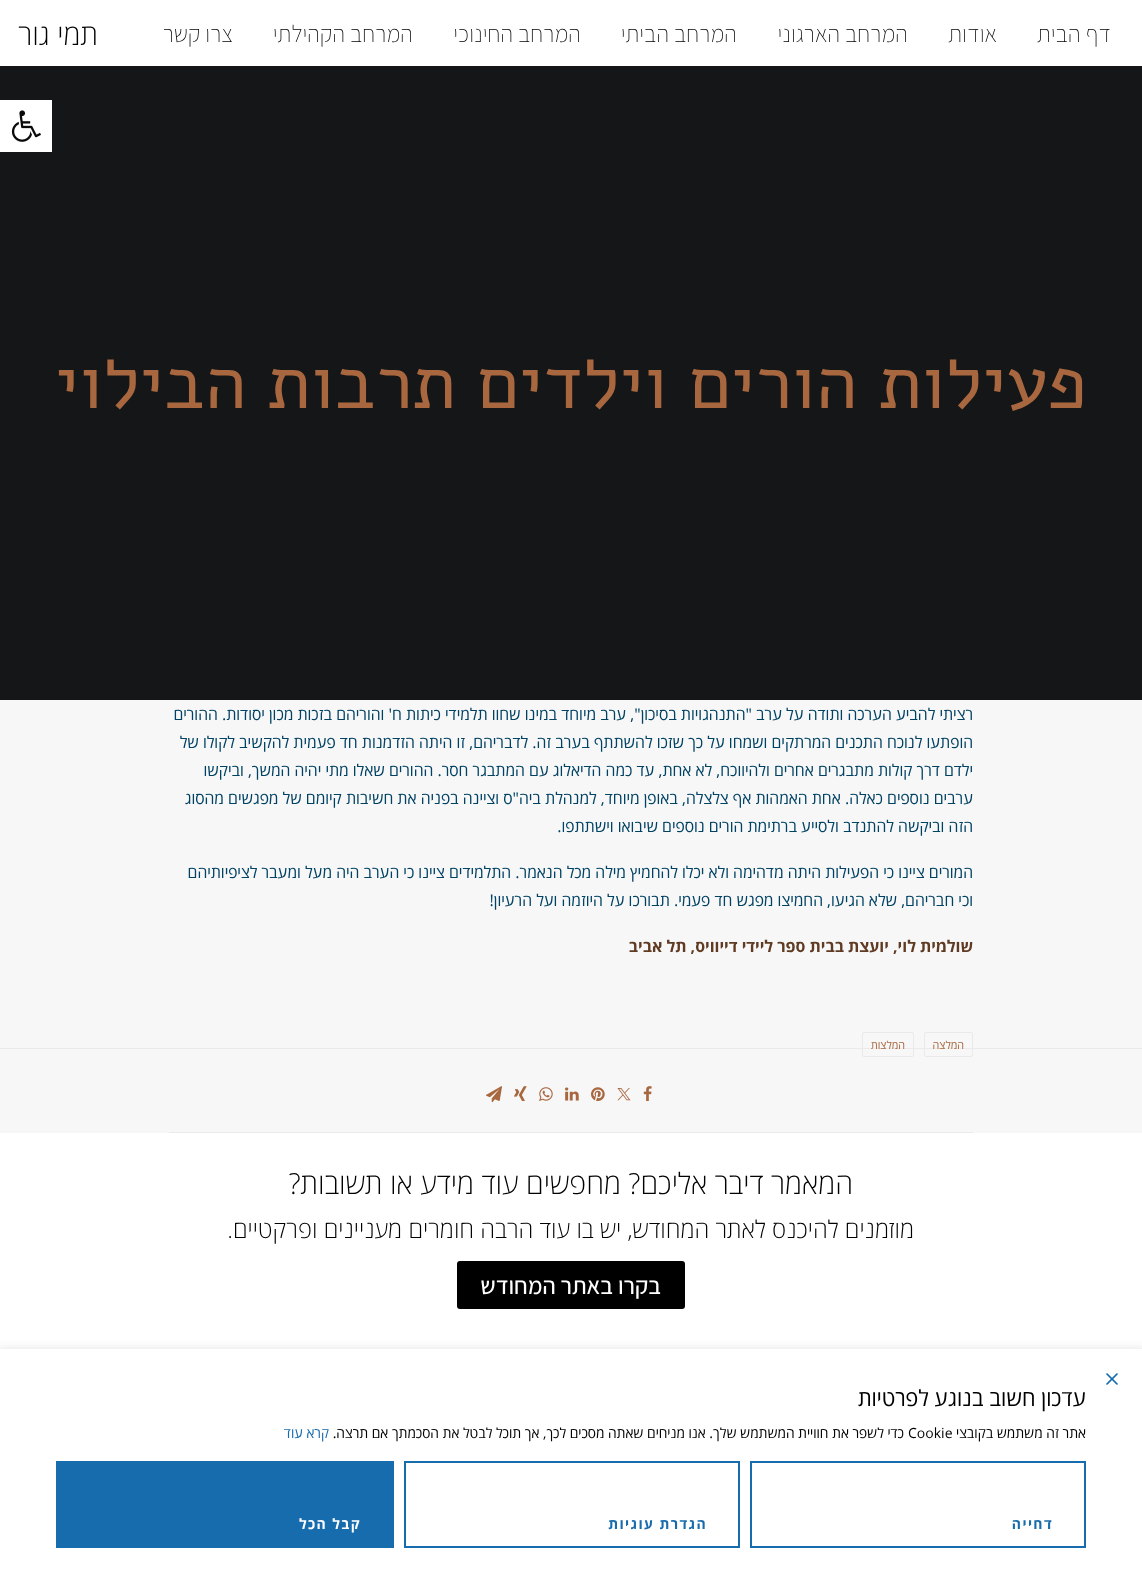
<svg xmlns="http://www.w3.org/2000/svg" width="1142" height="1584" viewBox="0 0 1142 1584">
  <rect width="100%" height="100%" fill="rgb(255,255,255)"/>
  <g font-family="Assistant" font-size="24" font-weight="200" direction="rtl" fill="rgb(0,0,0)">
    <text x="1111" y="42">דף הבית</text>
    <text x="997" y="42">אודות</text>
    <text x="908" y="42">המרחב הארגוני</text>
    <text x="737" y="42">המרחב הביתי</text>
    <text x="581" y="42">המרחב החינוכי</text>
    <text x="413" y="42">המרחב הקהילתי</text>
    <text x="233" y="42">צרו קשר</text>
  </g>
  <text x="98" y="45" font-family="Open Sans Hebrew" font-size="29" font-weight="300" direction="rtl" fill="rgb(0,0,0)">תמי גור</text>
  <rect x="0" y="66" width="1142" height="634" fill="rgb(20,22,24)"/>
  <rect x="0" y="100" width="52" height="52" fill="rgb(255,255,255)"/>
  <image x="11" y="110" width="30" height="32" href="pic1.png"/>
  <text x="1087" y="408" font-family="Alef" font-size="75" direction="rtl" fill="rgb(168,103,63)">פעילות הורים וילדים תרבות הבילוי</text>
  <rect x="0" y="700" width="1142" height="433" fill="rgb(247,247,247)"/>
  <g font-family="Open Sans Hebrew" font-size="16" direction="rtl" fill="rgb(0,66,100)">
    <text>
      <tspan x="973" y="720">רציתי להביע הערכה ותודה על ערב "התנהגויות בסיכון", ערב מיוחד במינו שחוו תלמידי כיתות ח' והוריהם בזכות מכון יסודות. ההורים</tspan>
      <tspan x="973" y="748">הופתעו לנוכח התכנים המרתקים ושמחו על כך שזכו להשתתף בערב זה. לדבריהם, זו היתה הזדמנות חד פעמית להקשיב לקולו של</tspan>
      <tspan x="973" y="776">ילדם דרך קולות מתבגרים אחרים ולהיווכח, לא אחת, עד כמה הדיאלוג עם המתבגר חסר. ההורים שאלו מתי יהיה המשך, וביקשו</tspan>
      <tspan x="973" y="804">ערבים נוספים כאלה. אחת האמהות אף צלצלה, באופן מיוחד, למנהלת ביה"ס וציינה בפניה את חשיבות קיומם של מפגשים מהסוג</tspan>
      <tspan x="973" y="832">הזה וביקשה להתנדב ולסייע ברתימת הורים נוספים שיבואו וישתתפו.</tspan>
    </text>
    <text>
      <tspan x="973" y="878">המורים ציינו כי הפעילות היתה מדהימה ולא יכלו להחמיץ מילה מכל הנאמר. התלמידים ציינו כי הערב היה מעל ומעבר לציפיותיהם</tspan>
      <tspan x="973" y="906">וכי חבריהם, שלא הגיעו, החמיצו מפגש חד פעמי. תבורכו על היוזמה ועל הרעיון!</tspan>
    </text>
  </g>
  <text x="973" y="952" font-family="Open Sans Hebrew" font-size="16" font-weight="bold" direction="rtl" fill="rgb(96,59,35)">שולמית לוי, יועצת בבית ספר ליידי דייוויס, תל אביב</text>
  <rect x="0" y="1048" width="1142" height="1" fill="rgb(234,234,234)"/>
  <rect x="924.5" y="1032.5" width="48" height="24" rx="1.5" fill="none" stroke="rgb(234,234,234)"/>
  <text x="964" y="1049" font-family="Open Sans Hebrew" font-size="11" direction="rtl" fill="rgb(168,103,63)">המלצה</text>
  <rect x="862.5" y="1032.5" width="51" height="24" rx="1.5" fill="none" stroke="rgb(234,234,234)"/>
  <text x="905" y="1049" font-family="Open Sans Hebrew" font-size="11" direction="rtl" fill="rgb(168,103,63)">המלצות</text>
  <rect x="169" y="1132" width="804" height="1" fill="rgb(234,234,234)"/>
  <image x="643" y="1086" width="9" height="15" href="pic2.png"/>
  <image x="617" y="1088" width="14" height="13" href="pic3.png"/>
  <image x="591" y="1087" width="14" height="14" href="pic4.png"/>
  <image x="565" y="1087" width="14" height="14" href="pic5.png"/>
  <image x="539" y="1087" width="14" height="14" href="pic6.png"/>
  <image x="514" y="1086" width="13" height="15" href="pic7.png"/>
  <image x="486" y="1086" width="16" height="17" href="pic8.png"/>
  <g font-family="Open Sans Hebrew" font-size="29" font-weight="300" direction="rtl" fill="rgb(0,0,0)">
    <text x="853" y="1194">המאמר דיבר אליכם?</text>
    <text x="621" y="1194">מחפשים עוד מידע או תשובות?</text>
  </g>
  <text x="914" y="1238" font-family="Open Sans Hebrew" font-size="24" font-weight="300" direction="rtl" fill="rgb(0,0,0)">מוזמנים להיכנס לאתר המחודש, יש בו עוד הרבה חומרים מעניינים ופרקטיים.</text>
  <rect x="457" y="1261" width="228" height="48" rx="3" fill="rgb(0,0,0)"/>
  <text x="661" y="1294" font-family="Assistant" font-size="24" font-weight="500" direction="rtl" fill="rgb(255,255,255)">בקרו באתר המחודש</text>
  <rect x="-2" y="1350" width="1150" height="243" fill="rgb(221,221,221)" filter="blur(5.5px)"/>
  <rect x="0" y="1349" width="1142" height="235" fill="rgb(255,255,255)"/>
  <image x="1106" y="1373" width="12" height="12" href="pic9.png"/>
  <text x="1086" y="1406" font-family="Open Sans Hebrew" font-size="22" direction="rtl" fill="rgb(0,0,0)">עדכון חשוב בנוגע לפרטיות</text>
  <text x="1086" y="1438" font-family="Open Sans Hebrew" font-size="14" direction="rtl" fill="rgb(0,0,0)">אתר זה משתמש בקובצי</text>
  <text x="908" y="1438" font-family="Open Sans Hebrew" font-size="14" fill="rgb(0,0,0)">Cookie</text>
  <text x="904" y="1438" font-family="Open Sans Hebrew" font-size="14" direction="rtl" fill="rgb(0,0,0)">כדי לשפר את חוויית המשתמש שלך. אנו מניחים שאתה מסכים לכך, אך תוכל לבטל את הסכמתך אם תרצה.</text>
  <text x="329" y="1438" font-family="Open Sans Hebrew" font-size="14" direction="rtl" fill="rgb(23,108,174)">קרא עוד</text>
  <rect x="751" y="1462" width="334" height="85" fill="none" stroke="rgb(23,108,174)" stroke-width="2"/>
  <text x="1053" y="1529" font-family="Open Sans Hebrew" font-size="14" font-weight="bold" letter-spacing="1.4" direction="rtl" fill="rgb(23,108,174)">דחייה</text>
  <rect x="405" y="1462" width="334" height="85" fill="none" stroke="rgb(23,108,174)" stroke-width="2"/>
  <text x="707" y="1529" font-family="Open Sans Hebrew" font-size="14" font-weight="bold" letter-spacing="1.4" direction="rtl" fill="rgb(23,108,174)">הגדרת עוגיות</text>
  <rect x="56" y="1461" width="338" height="87" fill="rgb(23,108,174)"/>
  <text x="361" y="1529" font-family="Open Sans Hebrew" font-size="14" font-weight="bold" letter-spacing="1.4" direction="rtl" fill="rgb(255,255,255)">קבל הכל</text>
</svg>
